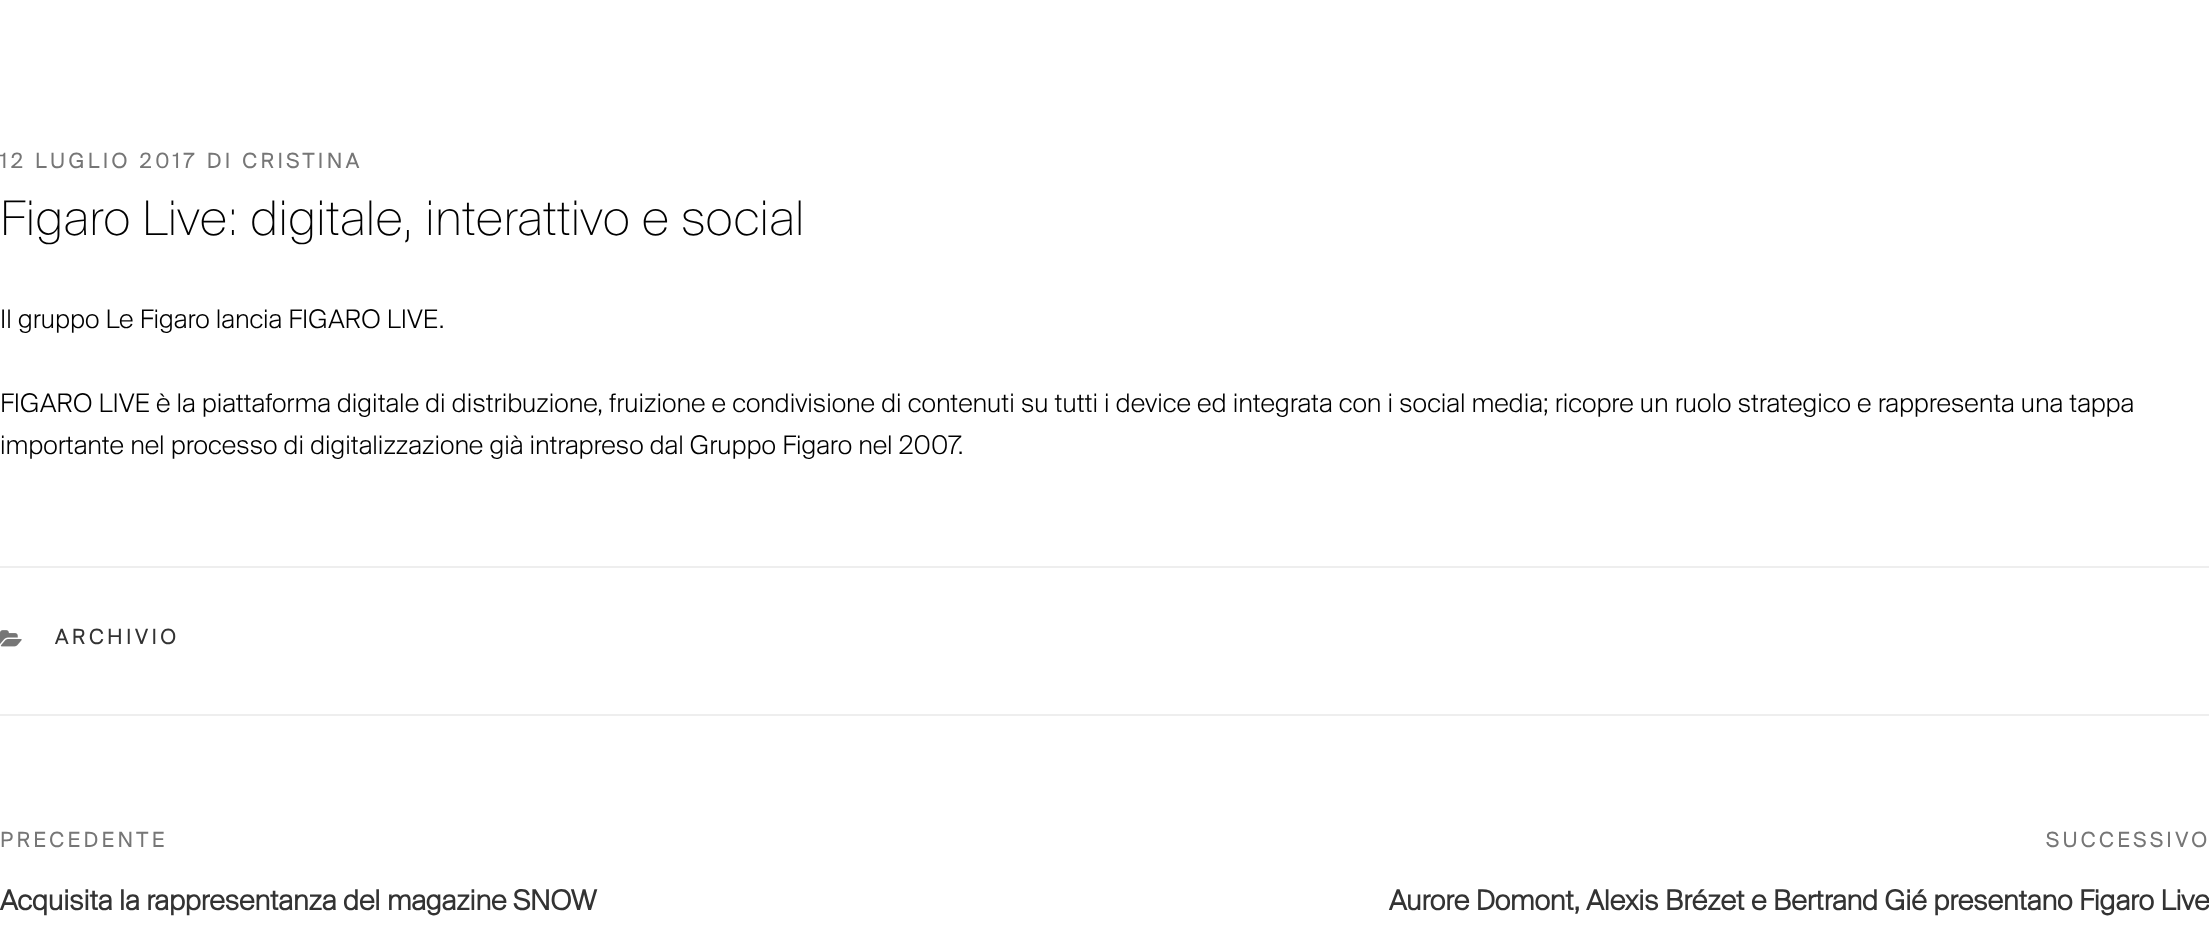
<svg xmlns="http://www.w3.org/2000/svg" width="2209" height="936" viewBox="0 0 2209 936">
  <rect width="100%" height="100%" fill="rgb(255,255,255)"/>
  <text x="0" y="168" font-family="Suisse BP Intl" font-size="22" font-weight="bold" letter-spacing="4" fill="rgb(118,118,118)">12 LUGLIO 2017 DI CRISTINA</text>
  <text x="0" y="235" font-family="Suisse BP Intl" font-size="52" font-weight="100" fill="rgb(0,0,0)">Figaro Live: digitale, interattivo e social</text>
  <g font-family="Suisse BP Intl" font-size="28" font-weight="300" fill="rgb(0,0,0)">
    <text x="0" y="328">Il gruppo Le Figaro lancia FIGARO LIVE.</text>
    <text>
      <tspan x="0" y="412">FIGARO LIVE è la piattaforma digitale di distribuzione, fruizione e condivisione di contenuti su tutti i device ed integrata con i social media; ricopre un ruolo strategico e rappresenta una tappa</tspan>
      <tspan x="0" y="454">importante nel processo di digitalizzazione già intrapreso dal Gruppo Figaro nel 2007.</tspan>
    </text>
  </g>
  <rect x="0" y="566" width="2209" height="2" fill="rgb(238,238,238)"/>
  <rect x="0" y="714" width="2209" height="2" fill="rgb(238,238,238)"/>
  <image x="0" y="630" width="22" height="17" href="pic1.png"/>
  <text x="55" y="644" font-family="Suisse BP Intl" font-size="22" font-weight="bold" letter-spacing="4" fill="rgb(51,51,51)">ARCHIVIO</text>
  <text x="0" y="847" font-family="Suisse BP Intl" font-size="22" font-weight="bold" letter-spacing="4" fill="rgb(118,118,118)">PRECEDENTE</text>
  <text x="0" y="910" font-family="Suisse BP Intl" font-size="30" font-weight="bold" fill="rgb(51,51,51)">Acquisita la rappresentanza del magazine SNOW</text>
  <text x="2046" y="847" font-family="Suisse BP Intl" font-size="22" font-weight="bold" letter-spacing="4" fill="rgb(118,118,118)">SUCCESSIVO</text>
  <text x="1389" y="910" font-family="Suisse BP Intl" font-size="30" font-weight="bold" fill="rgb(51,51,51)">Aurore Domont, Alexis Brézet e Bertrand Gié presentano Figaro Live</text>
</svg>
